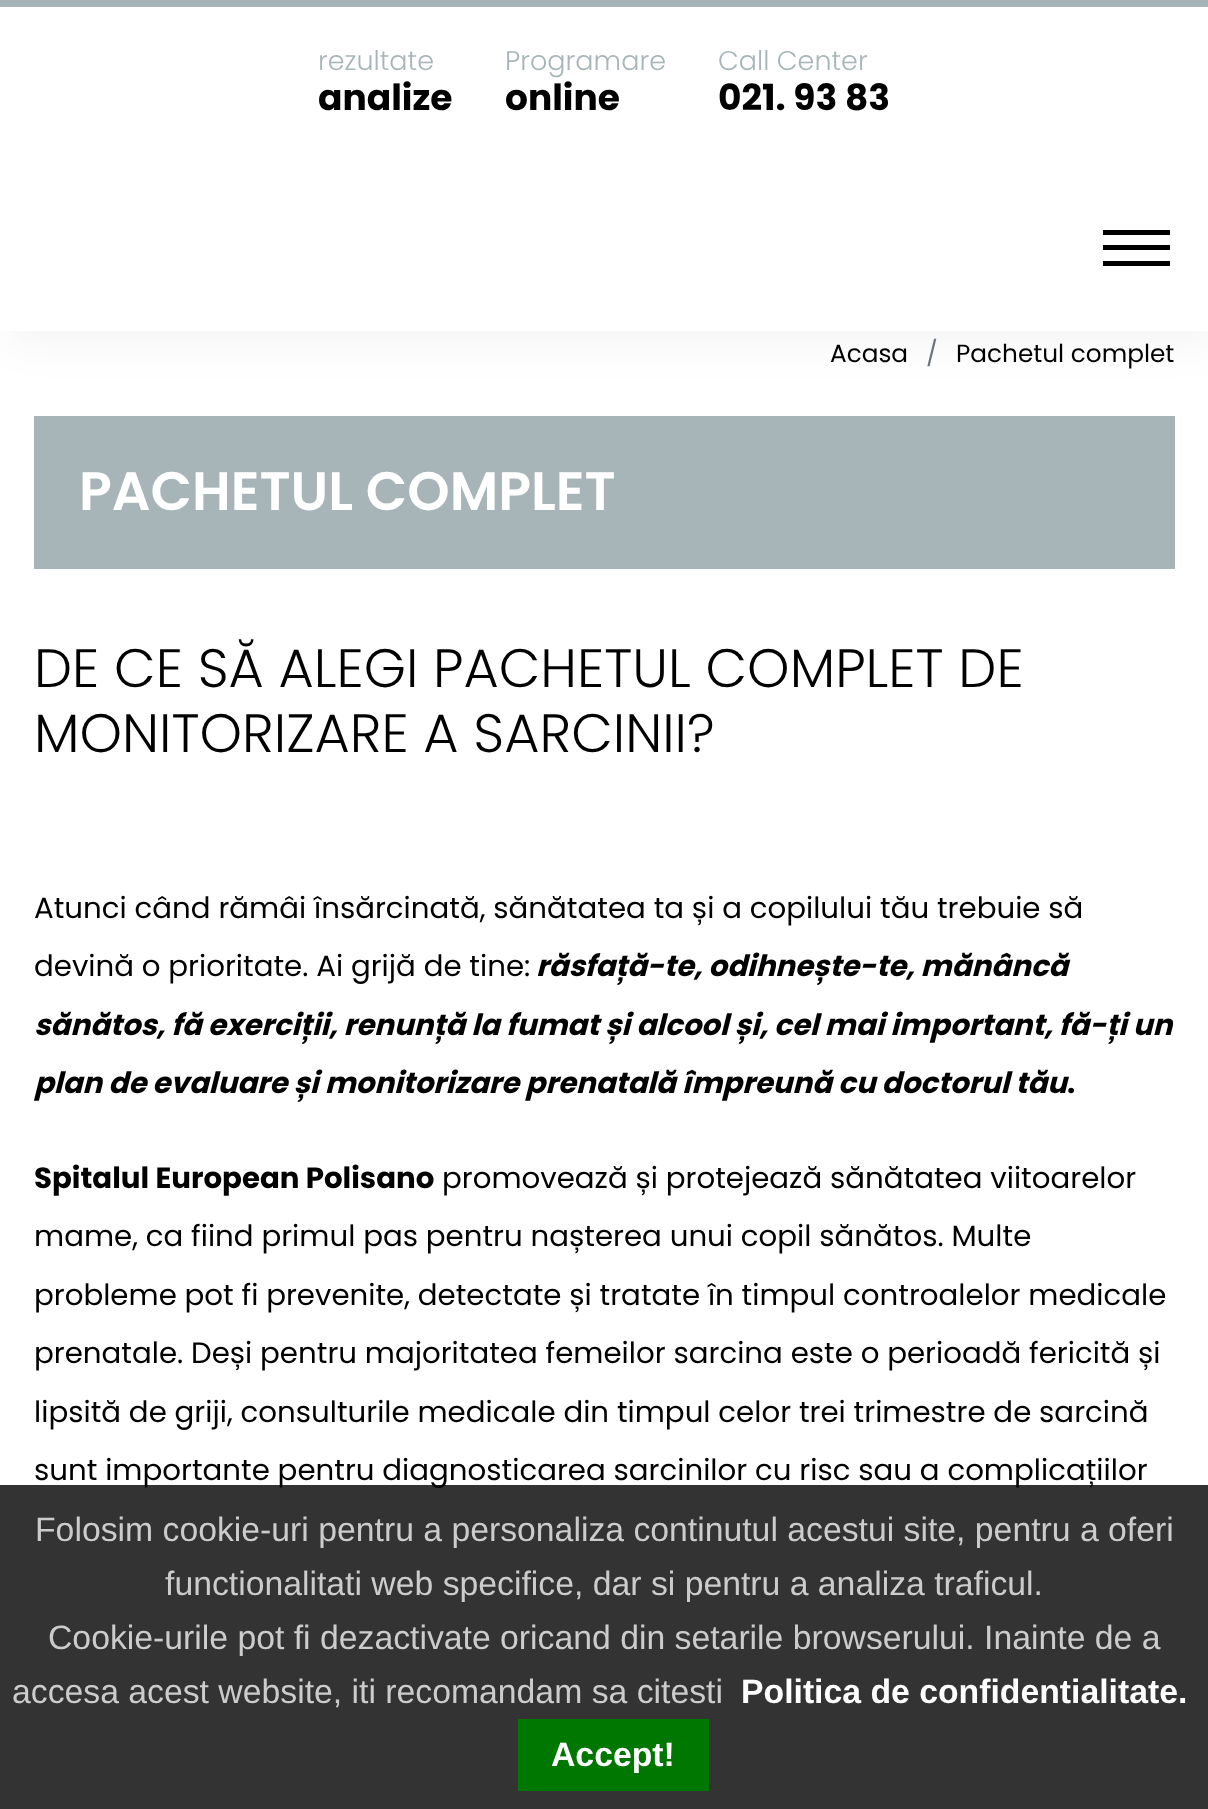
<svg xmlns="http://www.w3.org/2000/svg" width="1208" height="1809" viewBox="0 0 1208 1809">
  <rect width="100%" height="100%" fill="rgb(255,255,255)"/>
  <rect x="9" y="9" width="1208" height="331" fill="rgba(0,0,0,0.05)" filter="blur(22.5px)"/>
  <rect x="0" y="7" width="1208" height="324" fill="rgb(255,255,255)"/>
  <rect x="0" y="0" width="1208" height="7" fill="rgb(168,181,184)"/>
  <text x="318" y="70" font-family="Poppins" font-size="27" font-weight="300" fill="rgb(168,181,184)">rezultate</text>
  <text x="318" y="110" font-family="Poppins" font-size="36" font-weight="bold" fill="rgb(0,0,0)">analize</text>
  <text x="505" y="70" font-family="Poppins" font-size="27" font-weight="300" fill="rgb(168,181,184)">Programare</text>
  <text x="505" y="110" font-family="Poppins" font-size="36" font-weight="bold" fill="rgb(0,0,0)">online</text>
  <text x="718" y="70" font-family="Poppins" font-size="27" font-weight="300" fill="rgb(168,181,184)">Call Center</text>
  <text x="718" y="110" font-family="Poppins" font-size="36" font-weight="bold" fill="rgb(0,0,0)">021. 93 83</text>
  <rect x="1103" y="230" width="67" height="5" fill="rgb(0,0,0)"/>
  <rect x="1103" y="245" width="67" height="5" fill="rgb(0,0,0)"/>
  <rect x="1103" y="261" width="67" height="5" fill="rgb(0,0,0)"/>
  <text x="830" y="362" font-family="Poppins" font-size="24.75" fill="rgb(0,0,0)">Acasa</text>
  <text x="926" y="362" font-family="Poppins" font-size="24.75" fill="rgb(108,117,125)">/</text>
  <text x="956" y="362" font-family="Poppins" font-size="24.75" fill="rgb(0,0,0)">Pachetul complet</text>
  <rect x="34" y="416" width="1141" height="153" fill="rgb(168,181,184)"/>
  <text x="79" y="510" font-family="Poppins" font-size="54" font-weight="600" fill="rgb(255,255,255)">PACHETUL COMPLET</text>
  <g font-family="Poppins" font-size="54" font-weight="300" fill="rgb(0,0,0)">
    <text>
      <tspan x="34" y="687">DE CE SĂ ALEGI PACHETUL COMPLET DE</tspan>
      <tspan x="34" y="752">MONITORIZARE A SARCINII?</tspan>
    </text>
  </g>
  <g font-family="Poppins" font-size="29.25" fill="rgb(0,0,0)">
    <text>
      <tspan x="34" y="918">Atunci când rămâi însărcinată, sănătatea ta și a copilului tău trebuie să</tspan>
      <tspan x="34" y="976">devină o prioritate. Ai grijă de tine:</tspan>
    </text>
  </g>
  <g font-family="Poppins" font-size="29.25" font-weight="bold" font-style="italic" fill="rgb(0,0,0)">
    <text x="536" y="976">răsfață-te, odihnește-te, mănâncă</text>
    <text>
      <tspan x="34" y="1035">sănătos, fă exerciții, renunță la fumat și alcool și, cel mai important, fă-ți un</tspan>
      <tspan x="34" y="1093">plan de evaluare și monitorizare prenatală împreună cu doctorul tău</tspan>
    </text>
  </g>
  <g font-family="Poppins" font-size="29.25" font-weight="bold" fill="rgb(0,0,0)">
    <text x="1067" y="1093">.</text>
    <text x="34" y="1188">Spitalul European Polisano</text>
  </g>
  <g font-family="Poppins" font-size="29.25" fill="rgb(0,0,0)">
    <text x="442" y="1188">promovează și protejează sănătatea viitoarelor</text>
    <text x="34" y="1246">mame, ca fiind primul pas pentru nașterea unui copil sănătos. Multe</text>
    <text>
      <tspan x="34" y="1305">probleme pot fi prevenite, detectate și tratate în timpul controalelor medicale</tspan>
      <tspan x="34" y="1363">prenatale. Deși pentru majoritatea femeilor sarcina este o perioadă fericită și</tspan>
    </text>
    <text>
      <tspan x="34" y="1422">lipsită de griji, consulturile medicale din timpul celor trei trimestre de sarcină</tspan>
      <tspan x="34" y="1480">sunt importante pentru diagnosticarea sarcinilor cu risc sau a complicațiilor</tspan>
    </text>
  </g>
  <rect x="0" y="1485" width="1208" height="324" fill="rgba(0,0,0,0.8)"/>
  <g font-family="Liberation Sans" font-size="33.75" fill="rgb(204,204,204)">
    <text x="35" y="1541">Folosim cookie-uri pentru a personaliza continutul acestui site, pentru a oferi</text>
    <text x="165" y="1595">functionalitati web specifice, dar si pentru a analiza traficul.</text>
    <text x="48" y="1649">Cookie-urile pot fi dezactivate oricand din setarile browserului. Inainte de a</text>
    <text x="12" y="1703">accesa acest website, iti recomandam sa citesti</text>
  </g>
  <text x="741" y="1703" font-family="Liberation Sans" font-size="33.75" font-weight="bold" fill="rgb(255,255,255)">Politica de confidentialitate.</text>
  <rect x="518" y="1719" width="191" height="72" fill="rgb(0,119,0)"/>
  <text x="551" y="1766" font-family="Liberation Sans" font-size="33.75" font-weight="bold" fill="rgb(255,255,255)">Accept!</text>
</svg>
